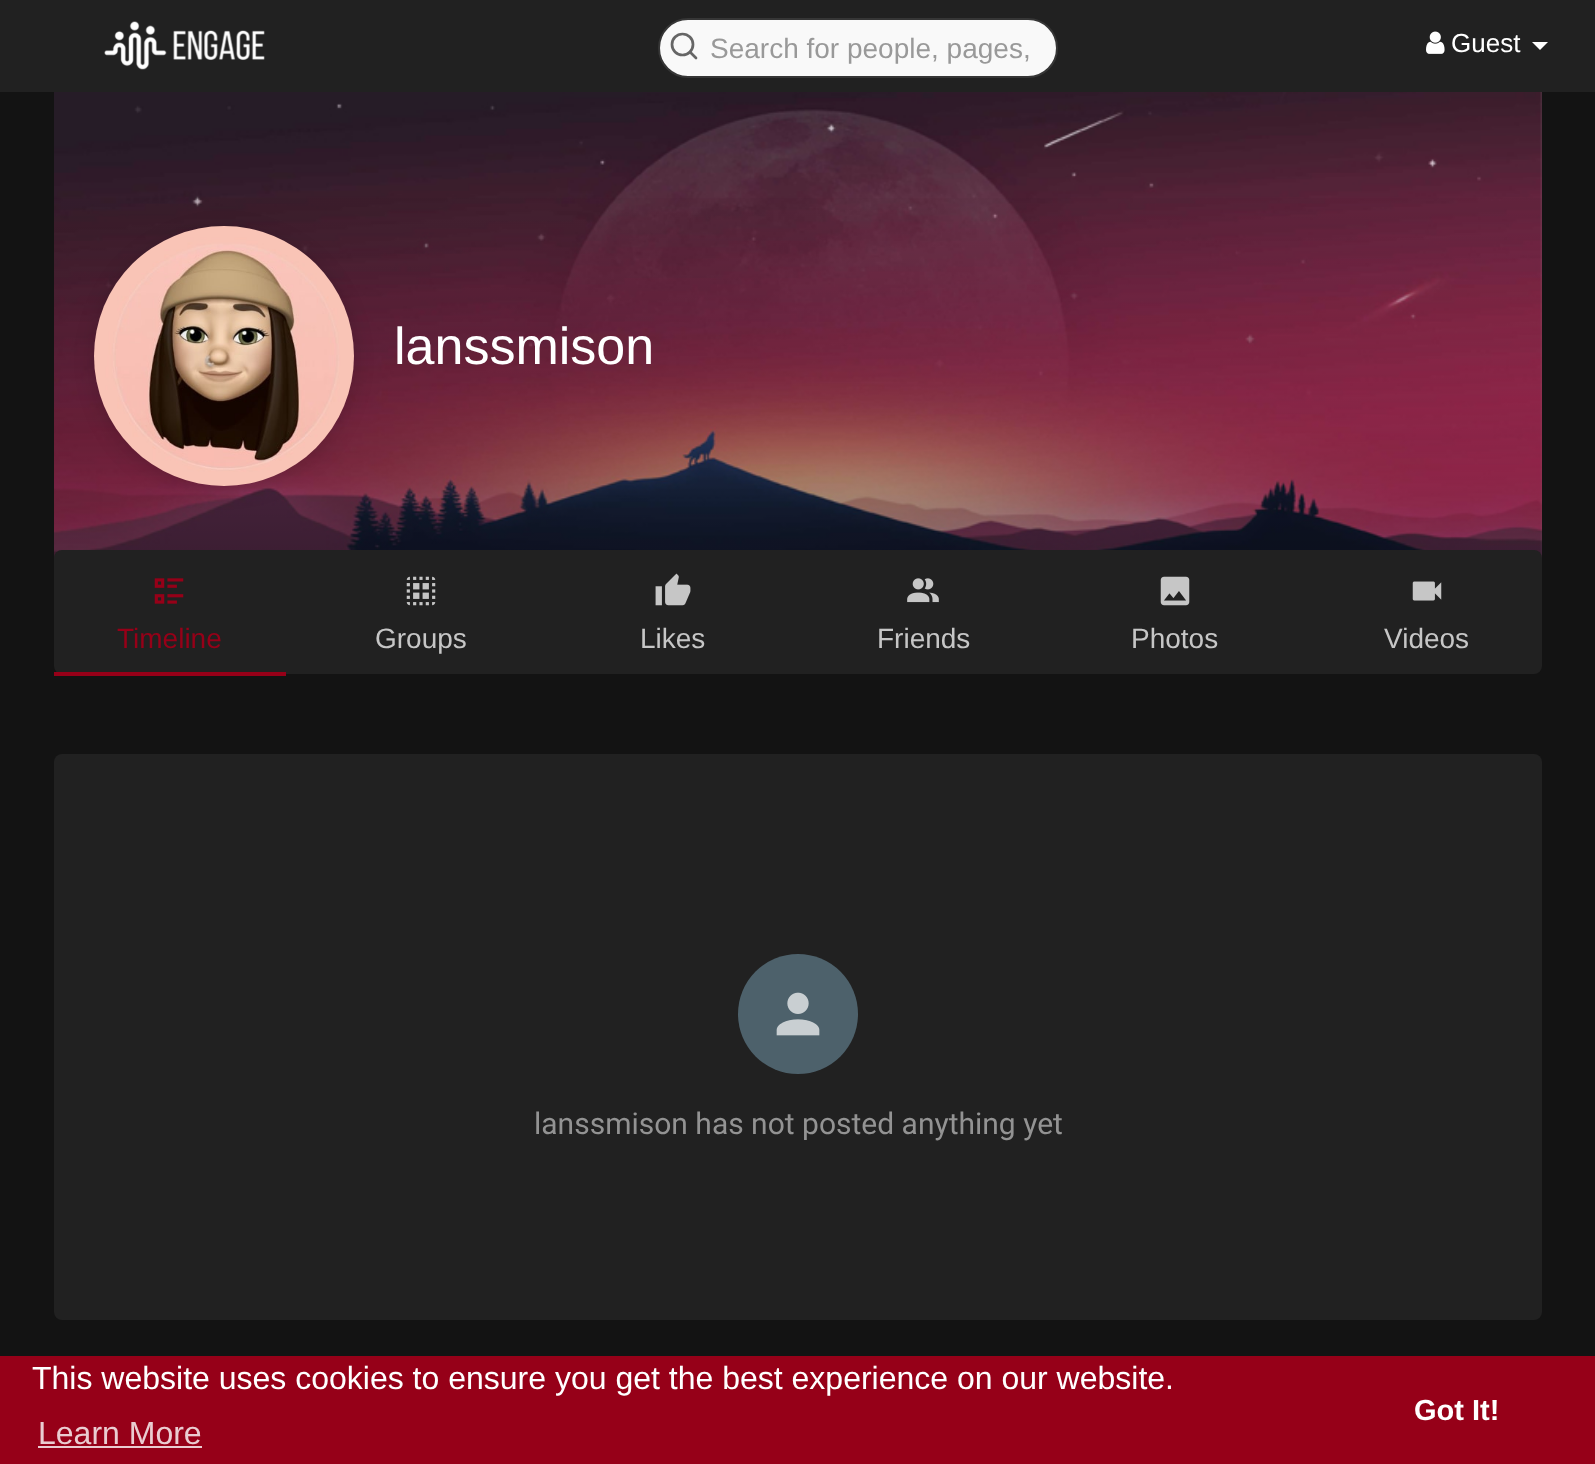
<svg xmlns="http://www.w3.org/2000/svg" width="1595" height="1464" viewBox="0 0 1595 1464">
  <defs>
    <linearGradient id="g1" gradientUnits="userSpaceOnUse" x1="798" y1="176" x2="798" y2="576"><stop offset="0" stop-color="rgb(0,0,0)" stop-opacity="0"/><stop offset="1" stop-color="rgb(0,0,0)" stop-opacity="0.45"/></linearGradient>
  </defs>
  <rect width="100%" height="100%" fill="rgb(19,19,19)"/>
  <rect x="0" y="0" width="1595" height="92" fill="rgb(33,33,33)"/>
  <image x="104" y="21" width="161" height="49" href="pic1.png"/>
  <rect x="659" y="19" width="398" height="58" rx="29" fill="rgb(249,249,249)" stroke="rgb(54,54,54)" stroke-width="2"/>
  <circle cx="682.5" cy="44.5" r="10.5" fill="none" stroke="rgb(102,102,102)" stroke-width="2.7"/>
  <path d="M696 58L690 52" fill="none" stroke="rgb(102,102,102)" stroke-width="2.7" stroke-linecap="round" stroke-linejoin="round"/>
  <text x="710" y="58" font-family="Liberation Sans" font-size="28" fill="rgb(153,153,153)">Search for people, pages,</text>
  <image x="1426" y="31" width="19" height="23" href="pic2.png"/>
  <text x="1451" y="52" font-family="Liberation Sans" font-size="26" fill="rgb(255,255,255)">Guest</text>
  <path d="M1532 42H1548L1540 50Z" fill="rgb(255,255,255)"/>
  <image x="54" y="92" width="1488" height="466" href="pic3.png"/>
  <rect x="54" y="198" width="1488" height="360" fill="url(#g1)"/>
  <rect x="94" y="230" width="260" height="260" rx="130" fill="rgba(0,0,0,0.15)" filter="blur(10px)"/>
  <image x="94" y="226" width="260" height="260" href="pic4.png"/>
  <text x="394" y="364" font-family="Liberation Sans" font-size="52" fill="rgb(255,255,255)">lanssmison</text>
  <rect x="54" y="550" width="1488" height="124" rx="8" fill="rgb(33,33,33)"/>
  <rect x="54" y="672" width="232" height="4" fill="rgb(150,0,24)"/>
  <image x="154" y="578" width="30" height="26" href="pic5.png"/>
  <text x="117" y="648" font-family="Liberation Sans" font-size="28" fill="rgb(150,0,24)">Timeline</text>
  <image x="406" y="576" width="30" height="30" href="pic6.png"/>
  <text x="375" y="648" font-family="Liberation Sans" font-size="28" fill="rgb(198,198,198)">Groups</text>
  <image x="655" y="573" width="36" height="33" href="pic7.png"/>
  <text x="640" y="648" font-family="Liberation Sans" font-size="28" fill="rgb(198,198,198)">Likes</text>
  <image x="907" y="578" width="32" height="25" href="pic8.png"/>
  <text x="877" y="648" font-family="Liberation Sans" font-size="28" fill="rgb(198,198,198)">Friends</text>
  <image x="1160" y="576" width="30" height="30" href="pic9.png"/>
  <text x="1131" y="648" font-family="Liberation Sans" font-size="28" fill="rgb(198,198,198)">Photos</text>
  <image x="1412" y="581" width="30" height="20" href="pic10.png"/>
  <text x="1384" y="648" font-family="Liberation Sans" font-size="28" fill="rgb(198,198,198)">Videos</text>
  <rect x="54" y="754" width="1488" height="566" rx="8" fill="rgb(33,33,33)"/>
  <circle cx="798" cy="1014" r="60" fill="rgb(77,97,107)"/>
  <image x="776" y="992" width="44" height="44" href="pic11.png"/>
  <text x="534" y="1134" font-family="Roboto" font-size="30" fill="rgb(147,147,147)">lanssmison has not posted anything yet</text>
  <rect x="0" y="1356" width="1595" height="108" fill="rgb(150,0,24)"/>
  <text x="32" y="1389" font-family="Liberation Sans" font-size="32" fill="rgb(255,255,255)">This website uses cookies to ensure you get the best experience on our website.</text>
  <text x="38" y="1444" font-family="Liberation Sans" font-size="32" fill="rgb(234,204,209)">Learn More</text>
  <rect x="38" y="1446" width="164" height="2" fill="rgb(234,204,209)"/>
  <text x="1414" y="1420" font-family="Liberation Sans" font-size="29" font-weight="bold" fill="rgb(255,255,255)">Got It!</text>
</svg>
